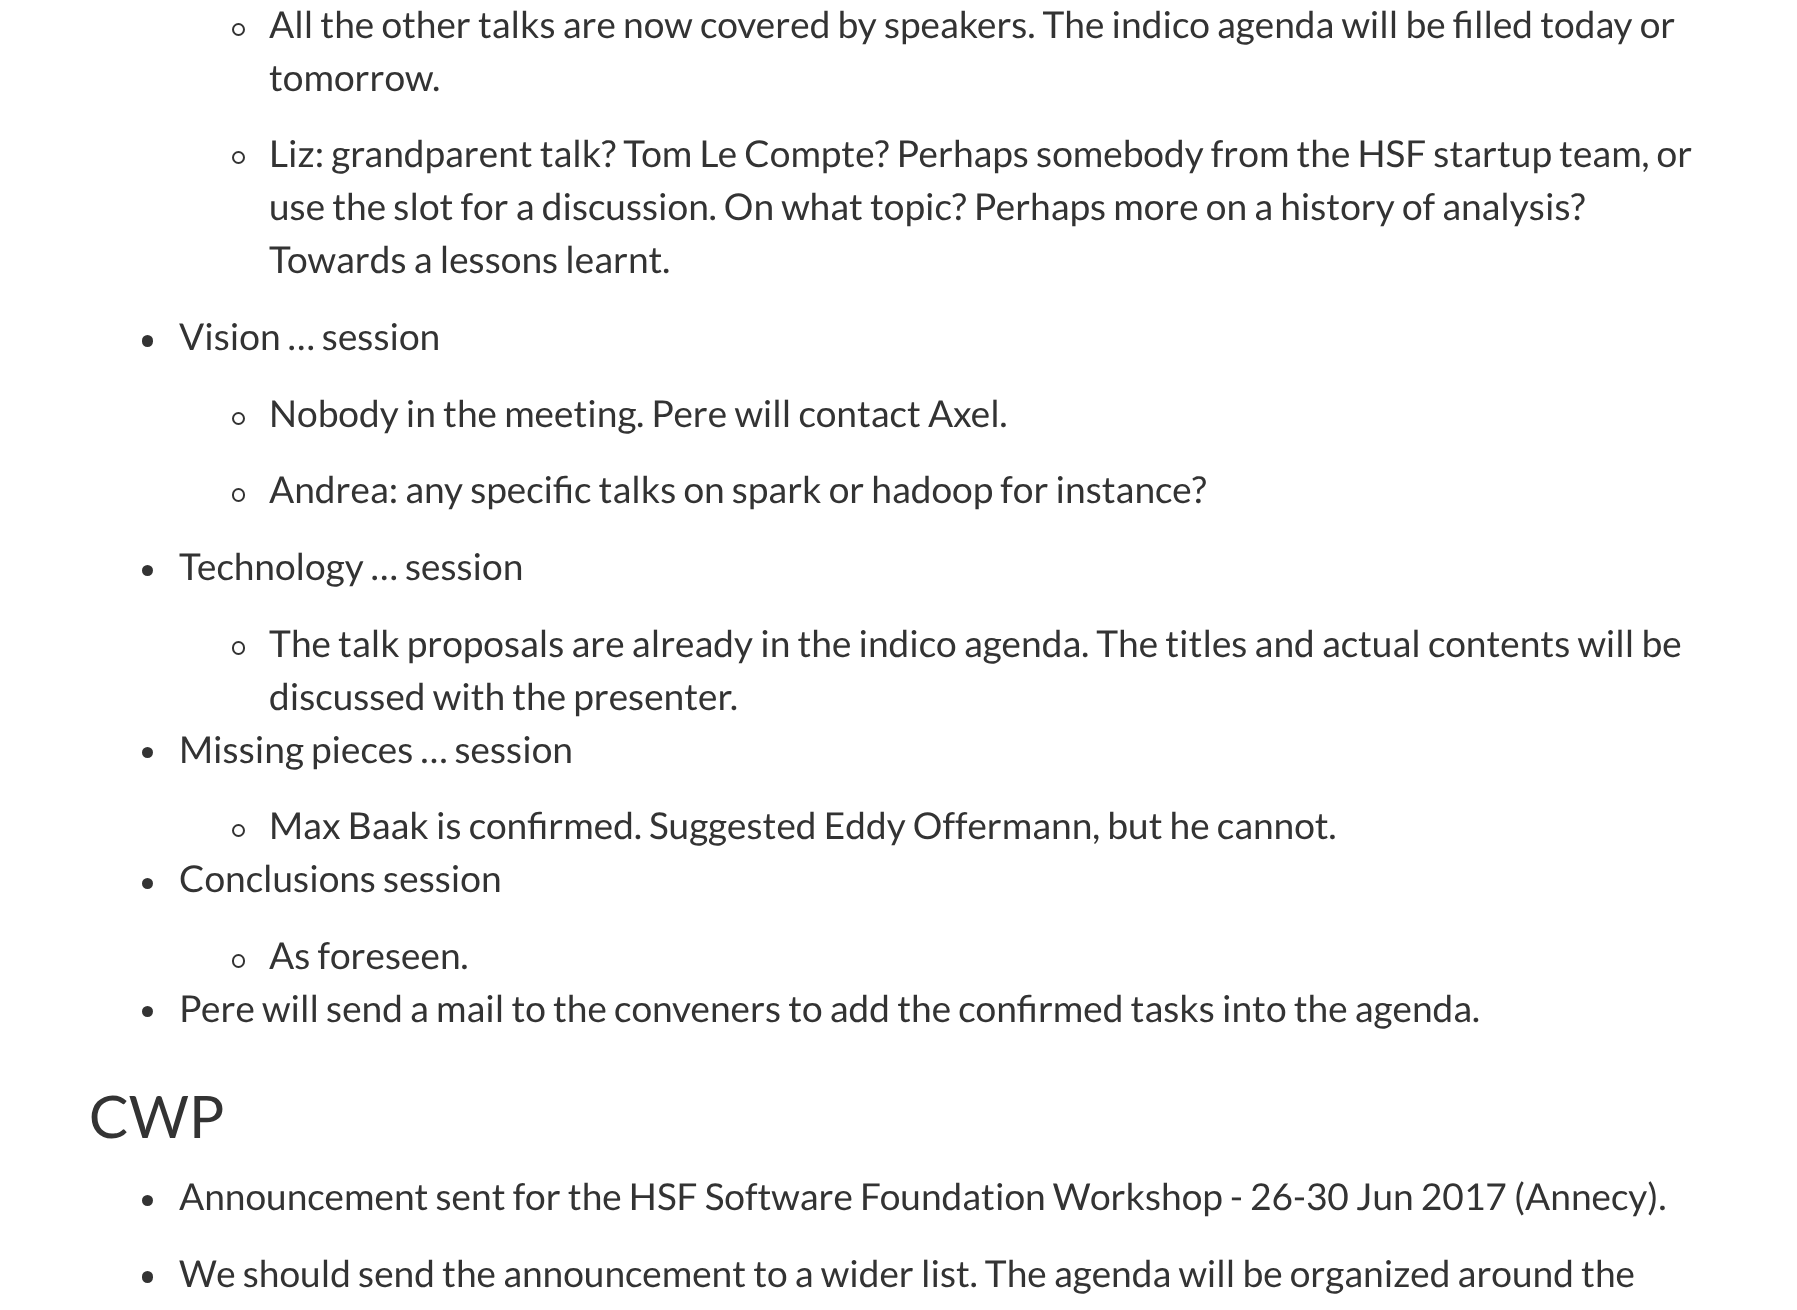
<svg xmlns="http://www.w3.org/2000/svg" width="1797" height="1310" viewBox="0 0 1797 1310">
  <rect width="100%" height="100%" fill="rgb(255,255,255)"/>
  <circle cx="238.5" cy="29.5" r="5.5" fill="none" stroke="rgb(51,51,51)" stroke-width="2"/>
  <g font-family="Lato" font-size="37.1" fill="rgb(51,51,51)">
    <text>
      <tspan x="269" y="38">All the other talks are now covered by speakers. The indico agenda will be filled today or</tspan>
      <tspan x="269" y="91">tomorrow.</tspan>
    </text>
  </g>
  <circle cx="238.5" cy="157.5" r="5.5" fill="none" stroke="rgb(51,51,51)" stroke-width="2"/>
  <g font-family="Lato" font-size="37.1" fill="rgb(51,51,51)">
    <text>
      <tspan x="269" y="167">Liz: grandparent talk? Tom Le Compte? Perhaps somebody from the HSF startup team, or</tspan>
      <tspan x="269" y="220">use the slot for a discussion. On what topic? Perhaps more on a history of analysis?</tspan>
      <tspan x="269" y="273">Towards a lessons learnt.</tspan>
    </text>
  </g>
  <rect x="142" y="335" width="11" height="12" rx="5.5" fill="rgb(51,51,51)"/>
  <text x="179" y="350" font-family="Lato" font-size="37.1" fill="rgb(51,51,51)">Vision … session</text>
  <circle cx="238.5" cy="418.5" r="5.5" fill="none" stroke="rgb(51,51,51)" stroke-width="2"/>
  <text x="269" y="427" font-family="Lato" font-size="37.1" fill="rgb(51,51,51)">Nobody in the meeting. Pere will contact Axel.</text>
  <rect x="233" y="489" width="11" height="12" rx="5.5" fill="none" stroke="rgb(51,51,51)" stroke-width="2"/>
  <text x="269" y="503" font-family="Lato" font-size="37.1" fill="rgb(51,51,51)">Andrea: any specific talks on spark or hadoop for instance?</text>
  <circle cx="147.5" cy="570.5" r="5.5" fill="rgb(51,51,51)"/>
  <text x="179" y="580" font-family="Lato" font-size="37.1" fill="rgb(51,51,51)">Technology … session</text>
  <rect x="233" y="642" width="11" height="12" rx="5.5" fill="none" stroke="rgb(51,51,51)" stroke-width="2"/>
  <g font-family="Lato" font-size="37.1" fill="rgb(51,51,51)">
    <text>
      <tspan x="269" y="657">The talk proposals are already in the indico agenda. The titles and actual contents will be</tspan>
      <tspan x="269" y="710">discussed with the presenter.</tspan>
    </text>
  </g>
  <circle cx="147.5" cy="752.5" r="5.5" fill="rgb(51,51,51)"/>
  <text x="179" y="763" font-family="Lato" font-size="37.1" fill="rgb(51,51,51)">Missing pieces … session</text>
  <circle cx="238.5" cy="830.5" r="5.5" fill="none" stroke="rgb(51,51,51)" stroke-width="2"/>
  <text x="269" y="839" font-family="Lato" font-size="37.1" fill="rgb(51,51,51)">Max Baak is confirmed. Suggested Eddy Offermann, but he cannot.</text>
  <circle cx="147.5" cy="883.5" r="5.5" fill="rgb(51,51,51)"/>
  <text x="179" y="892" font-family="Lato" font-size="37.1" fill="rgb(51,51,51)">Conclusions session</text>
  <rect x="233" y="955" width="11" height="12" rx="5.5" fill="none" stroke="rgb(51,51,51)" stroke-width="2"/>
  <text x="269" y="969" font-family="Lato" font-size="37.1" fill="rgb(51,51,51)">As foreseen.</text>
  <circle cx="147.5" cy="1011.5" r="5.5" fill="rgb(51,51,51)"/>
  <text x="179" y="1022" font-family="Lato" font-size="37.1" fill="rgb(51,51,51)">Pere will send a mail to the conveners to add the confirmed tasks into the agenda.</text>
  <text x="89" y="1138" font-family="Lato" font-size="58.5" fill="rgb(51,51,51)">CWP</text>
  <circle cx="147.5" cy="1200.5" r="5.5" fill="rgb(51,51,51)"/>
  <text x="179" y="1210" font-family="Lato" font-size="37.1" fill="rgb(51,51,51)">Announcement sent for the HSF Software Foundation Workshop - 26-30 Jun 2017 (Annecy).</text>
  <rect x="142" y="1271" width="11" height="12" rx="5.5" fill="rgb(51,51,51)"/>
  <text x="179" y="1287" font-family="Lato" font-size="37.1" fill="rgb(51,51,51)">We should send the announcement to a wider list. The agenda will be organized around the</text>
</svg>
